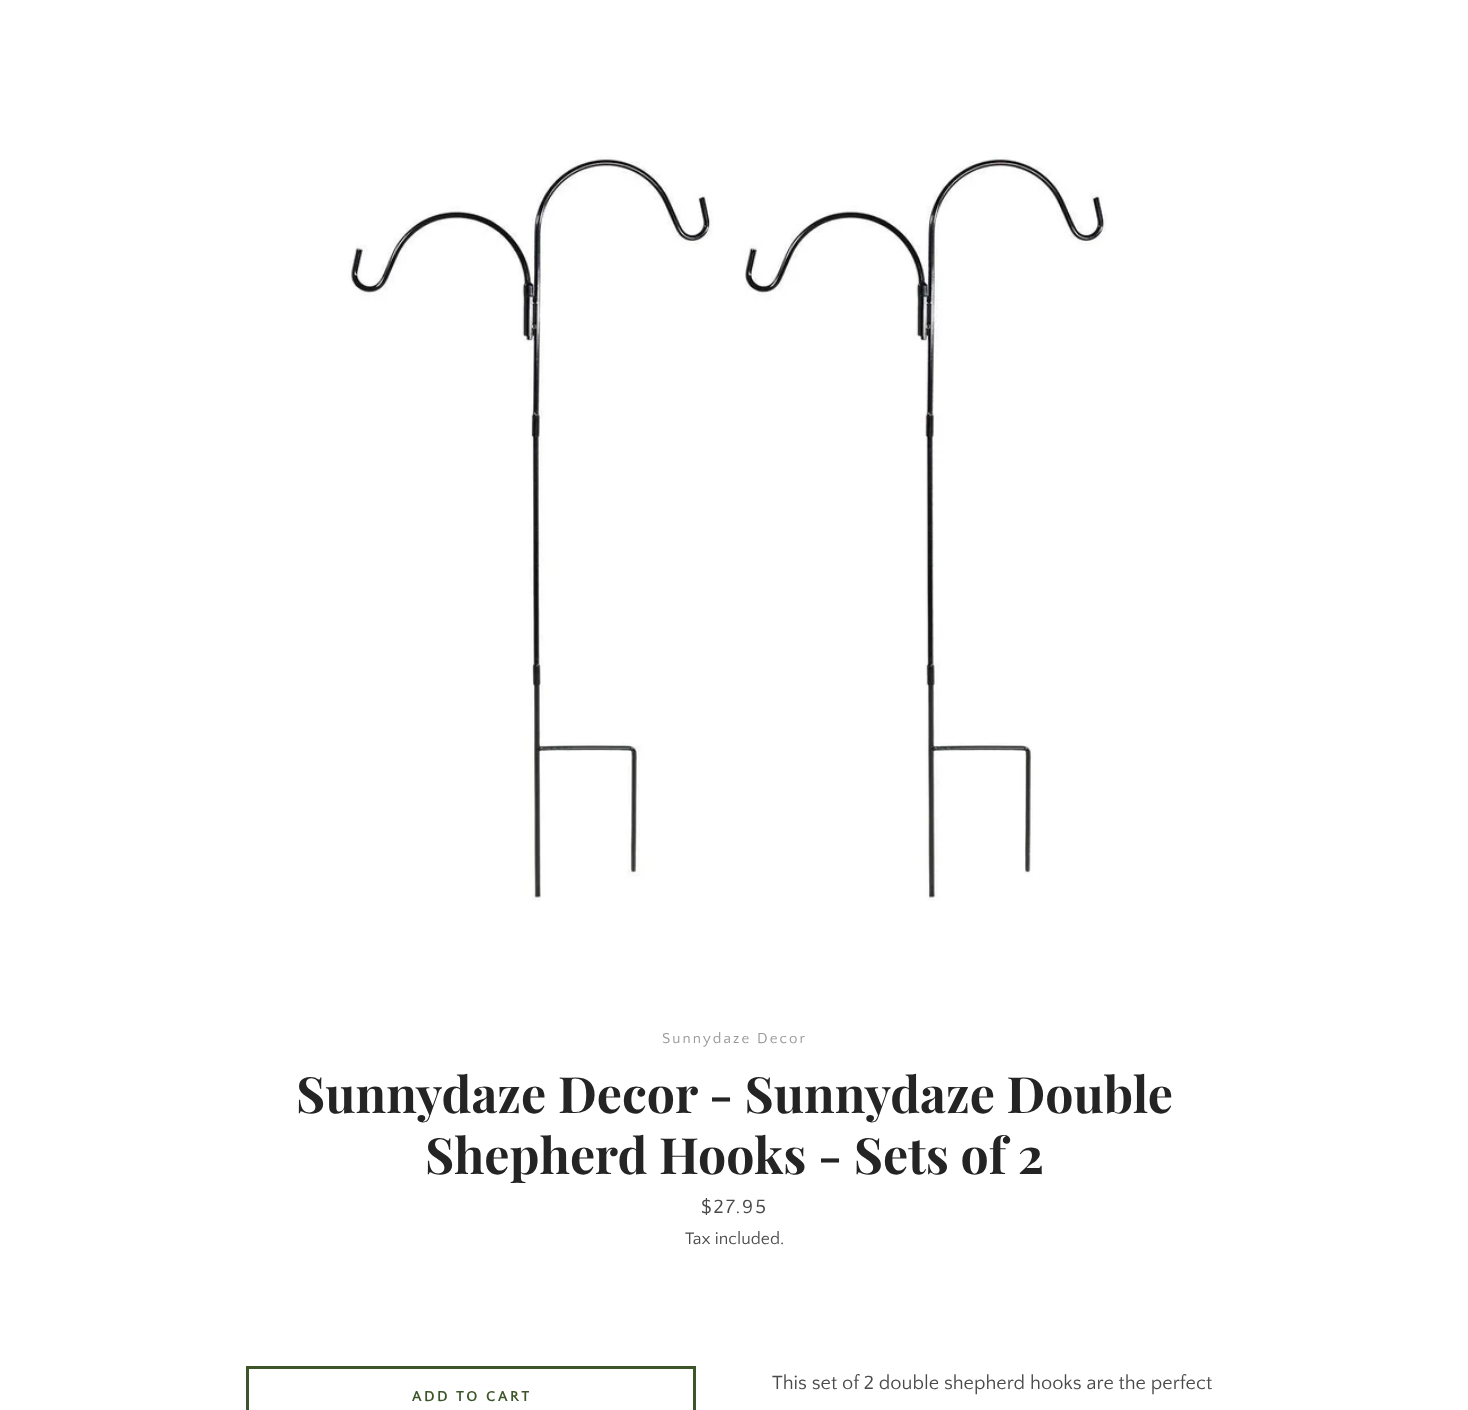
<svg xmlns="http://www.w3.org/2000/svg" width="1468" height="1410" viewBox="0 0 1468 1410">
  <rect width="100%" height="100%" fill="rgb(255,255,255)"/>
  <image x="348" y="156" width="759" height="745" href="pic1.png"/>
  <text x="662" y="1043" font-family="Quattrocento Sans" font-size="15" letter-spacing="2.1" fill="rgb(151,151,151)">Sunnydaze Decor</text>
  <g font-family="Playfair Display" font-size="50" font-weight="bold" fill="rgb(36,36,36)">
    <text x="296" y="1113">Sunnydaze Decor - Sunnydaze Double</text>
    <text x="425" y="1174">Shepherd Hooks - Sets of 2</text>
  </g>
  <text x="701" y="1213" font-family="Quattrocento Sans" font-size="20" letter-spacing="2" fill="rgb(74,74,74)">$27.95</text>
  <text x="685" y="1244" font-family="Quattrocento Sans" font-size="17.5" fill="rgb(74,74,74)">Tax included.</text>
  <text x="772" y="1389" font-family="Quattrocento Sans" font-size="20" fill="rgb(74,74,74)">This set of 2 double shepherd hooks are the perfect</text>
  <rect x="247.5" y="1367.5" width="447" height="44" fill="none" stroke="rgb(60,86,41)" stroke-width="3"/>
  <text x="412" y="1401" font-family="Quattrocento Sans" font-size="15" font-weight="bold" letter-spacing="2.5" fill="rgb(60,86,41)">ADD TO CART</text>
</svg>
